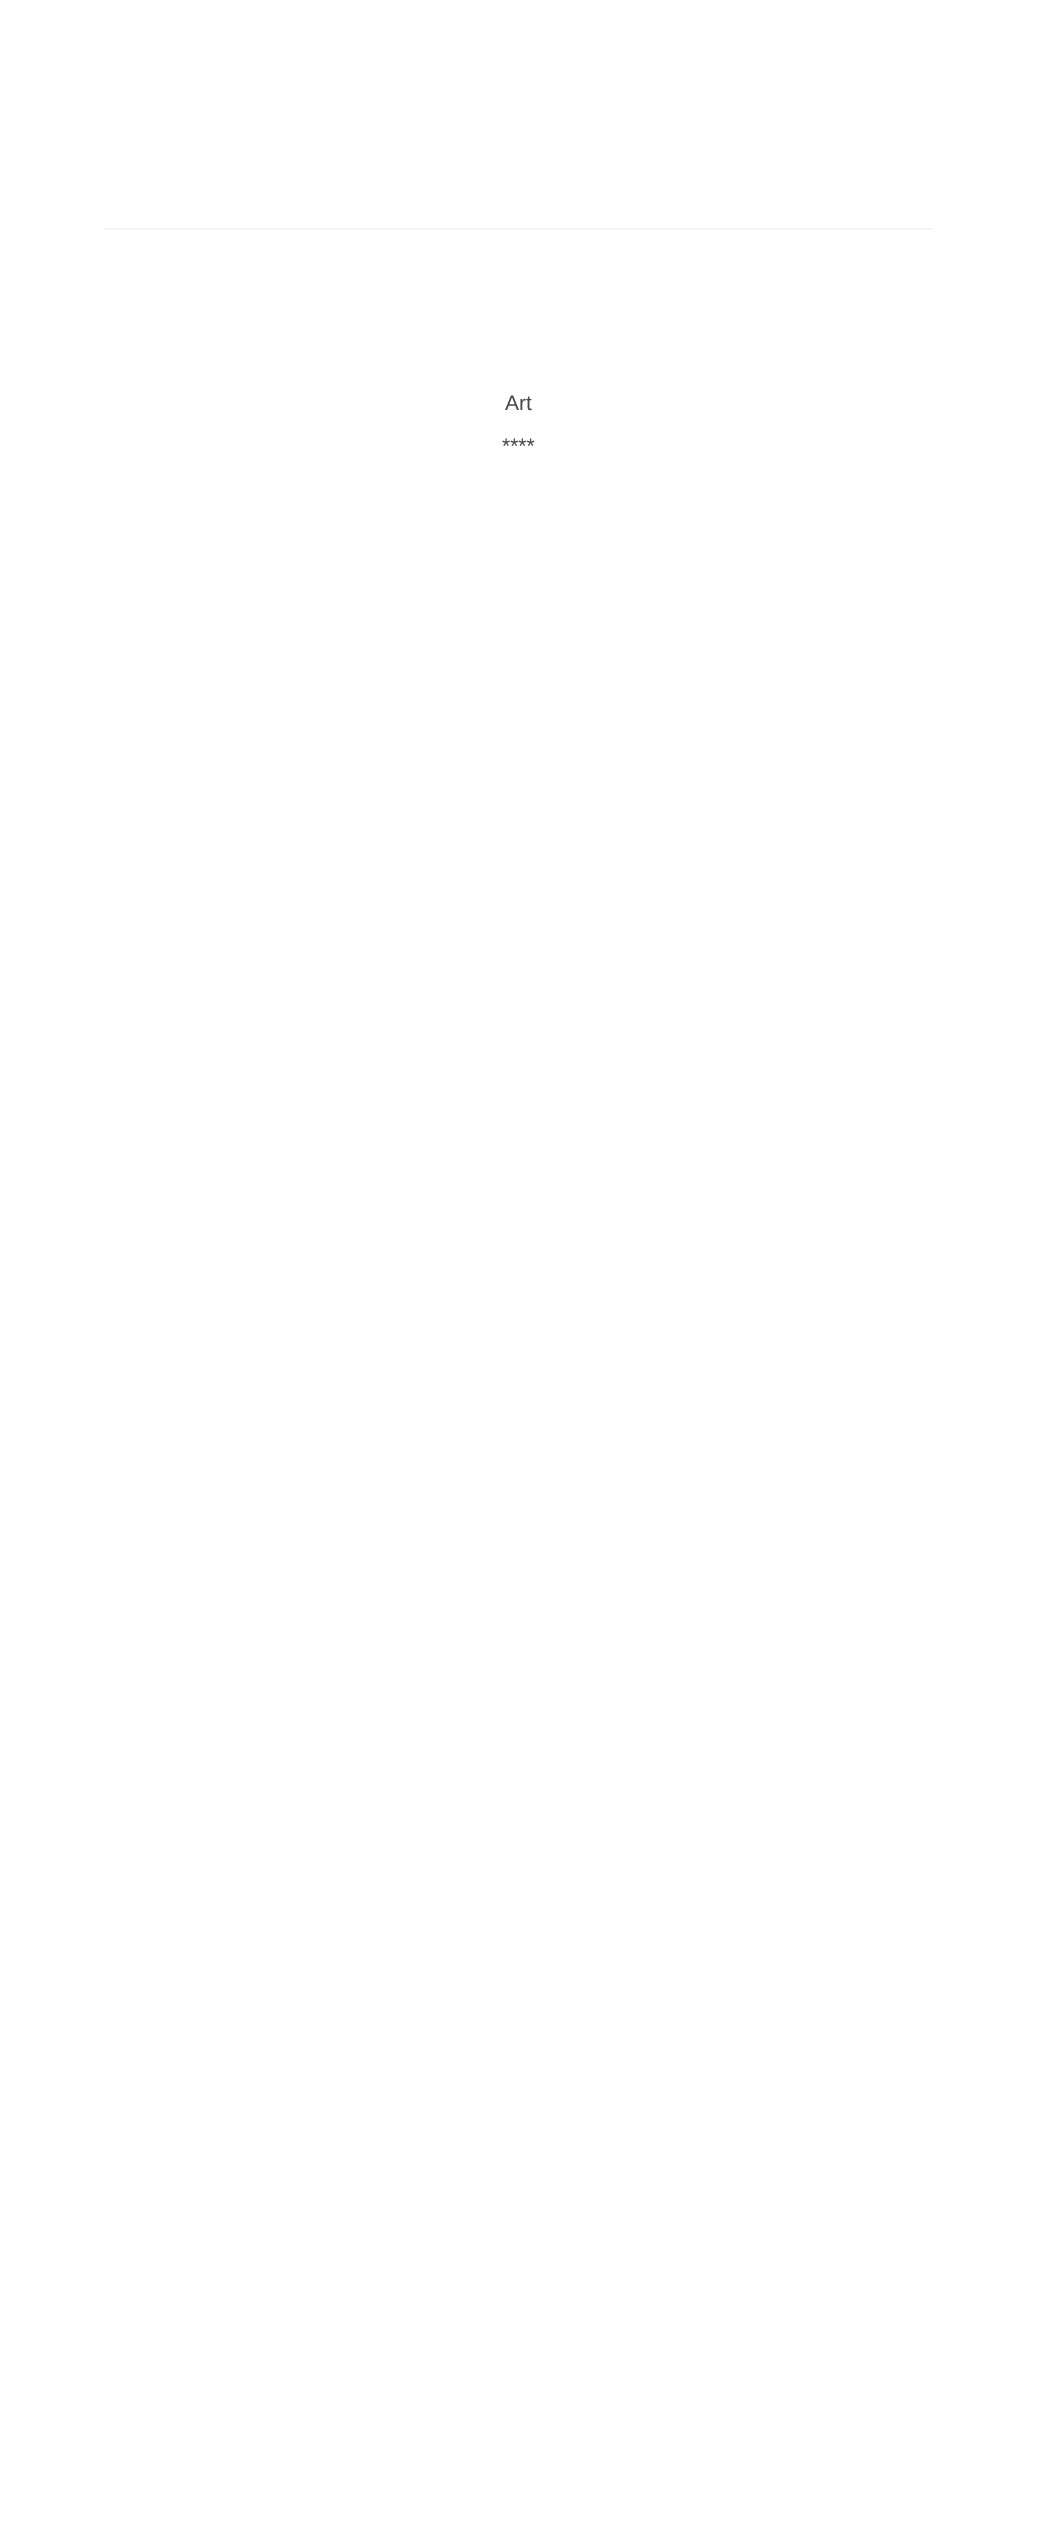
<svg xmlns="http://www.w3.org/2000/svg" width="1037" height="2531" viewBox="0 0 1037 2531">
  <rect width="100%" height="100%" fill="rgb(255,255,255)"/>
  <rect x="104" y="228" width="829" height="2" fill="rgb(244,244,244)"/>
  <g font-family="Liberation Sans" font-size="21" fill="rgb(72,72,72)">
    <text x="505" y="410">Art</text>
    <text x="502" y="453">****</text>
  </g>
</svg>
